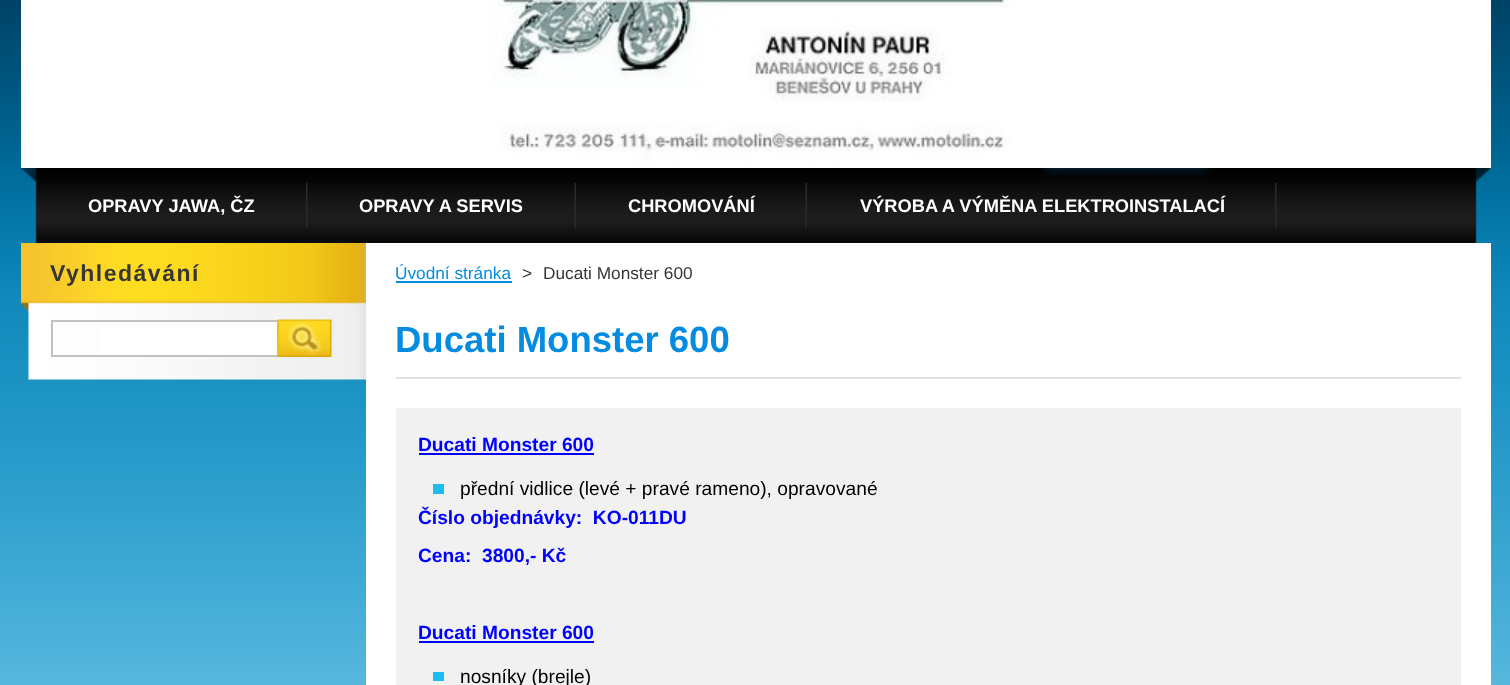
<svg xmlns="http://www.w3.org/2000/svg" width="1510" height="685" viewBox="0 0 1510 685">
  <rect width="100%" height="100%" fill="rgb(255,255,255)"/>
  <image x="0" y="0" width="1510" height="685" href="pic1.png"/>
  <image x="21" y="0" width="1470" height="168" href="pic2.png"/>
  <image x="21" y="168" width="1470" height="75" href="pic3.png"/>
  <image x="306" y="183" width="2" height="45" href="pic4.png"/>
  <text x="88" y="212" font-family="Liberation Sans" font-size="18.25" font-weight="bold" fill="rgb(255,255,255)">OPRAVY JAWA, ČZ</text>
  <image x="574" y="183" width="2" height="45" href="pic5.png"/>
  <text x="359" y="212" font-family="Liberation Sans" font-size="18.25" font-weight="bold" fill="rgb(255,255,255)">OPRAVY A SERVIS</text>
  <image x="805" y="183" width="2" height="45" href="pic5.png"/>
  <text x="628" y="212" font-family="Liberation Sans" font-size="18.25" font-weight="bold" fill="rgb(255,255,255)">CHROMOVÁNÍ</text>
  <image x="1275" y="183" width="2" height="45" href="pic4.png"/>
  <text x="860" y="212" font-family="Liberation Sans" font-size="18.25" font-weight="bold" fill="rgb(255,255,255)">VÝROBA A VÝMĚNA ELEKTROINSTALACÍ</text>
  <image x="28" y="303" width="338" height="77" href="pic6.png"/>
  <image x="21" y="243" width="345" height="69" href="pic7.png"/>
  <text x="50" y="281" font-family="Liberation Sans" font-size="23" font-weight="bold" letter-spacing="1.5" fill="rgb(54,54,54)">Vyhledávání</text>
  <rect x="98" y="322" width="179" height="33" fill="rgb(255,255,255)"/>
  <rect x="52" y="321" width="226" height="35" fill="none" stroke="rgb(193,193,193)" stroke-width="2"/>
  <image x="277" y="319" width="55" height="38" href="pic8.png"/>
  <rect x="366" y="243" width="1125" height="442" fill="rgb(255,255,255)"/>
  <text x="395" y="279" font-family="Liberation Sans" font-size="17.25" fill="rgb(5,140,225)">Úvodní stránka</text>
  <rect x="396" y="281" width="116" height="2" fill="rgb(5,140,225)"/>
  <g font-family="Liberation Sans" font-size="17.25" fill="rgb(54,54,54)">
    <text x="522" y="279">&gt;</text>
    <text x="543" y="279">Ducati Monster 600</text>
  </g>
  <rect x="396" y="377" width="1065" height="2" fill="rgb(225,225,225)"/>
  <text x="395" y="352" font-family="Liberation Sans" font-size="36.5" font-weight="bold" fill="rgb(5,140,225)">Ducati Monster 600</text>
  <rect x="396" y="408" width="1065" height="277" fill="rgb(241,241,241)"/>
  <text x="418" y="451" font-family="Liberation Sans" font-size="19.2" font-weight="bold" fill="rgb(0,0,255)">Ducati Monster 600</text>
  <rect x="419" y="453" width="175" height="2" fill="rgb(0,0,255)"/>
  <rect x="433" y="484" width="11" height="10" fill="rgb(27,188,240)"/>
  <text x="460" y="495" font-family="Liberation Sans" font-size="19.2" fill="rgb(0,0,0)">přední vidlice (levé + pravé rameno), opravované</text>
  <g font-family="Liberation Sans" font-size="19.2" font-weight="bold" fill="rgb(0,0,255)">
    <text xml:space="preserve"><tspan x="418" y="524">Číslo objednávky:  KO-011DU</tspan><tspan x="418" y="562">Cena:  3800,- Kč</tspan></text>
    <text x="418" y="639">Ducati Monster 600</text>
  </g>
  <rect x="419" y="641" width="175" height="2" fill="rgb(0,0,255)"/>
  <rect x="433" y="672" width="11" height="9" fill="rgb(27,188,240)"/>
  <text x="460" y="683" font-family="Liberation Sans" font-size="19.2" fill="rgb(0,0,0)">nosníky (brejle)</text>
</svg>
